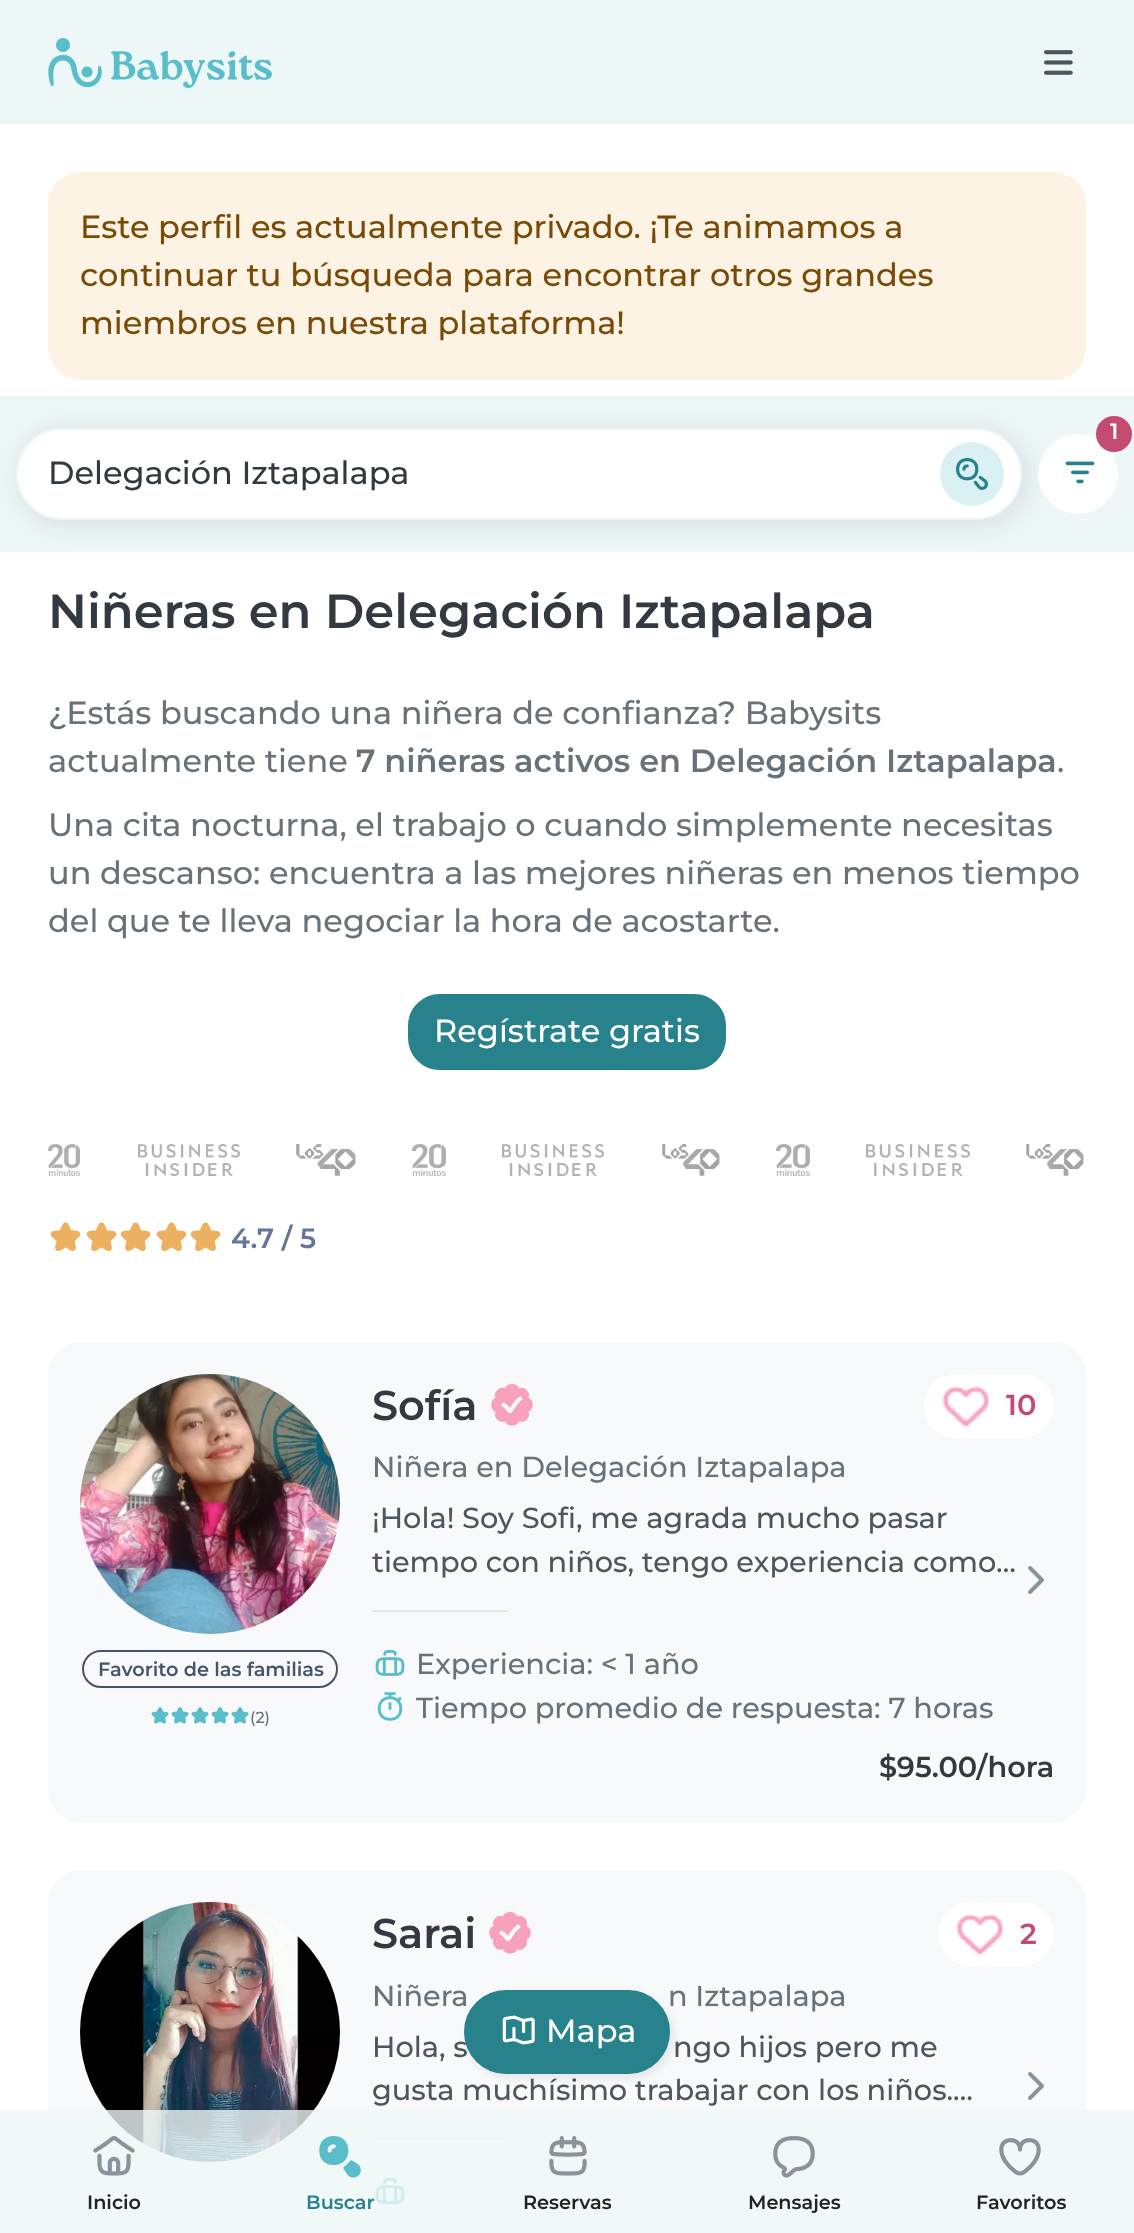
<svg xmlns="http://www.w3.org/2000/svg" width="1134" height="2233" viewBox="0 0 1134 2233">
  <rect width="100%" height="100%" fill="rgb(255,255,255)"/>
  <rect x="0" y="0" width="1134" height="124" fill="rgb(237,247,248)"/>
  <image x="48" y="38" width="224" height="50" href="pic1.png"/>
  <image x="1044" y="50" width="29" height="25" href="pic2.png"/>
  <rect x="48" y="172" width="1038" height="208" rx="32" fill="rgb(253,243,229)"/>
  <g font-family="Montserrat" font-size="32" font-weight="500" fill="rgb(121,73,6)">
    <text>
      <tspan x="80" y="238">Este perfil es actualmente privado. ¡Te animamos a</tspan>
      <tspan x="80" y="286">continuar tu búsqueda para encontrar otros grandes</tspan>
      <tspan x="80" y="334">miembros en nuestra plataforma!</tspan>
    </text>
  </g>
  <rect x="0" y="396" width="1134" height="156" fill="rgb(237,247,248)"/>
  <rect x="16" y="428" width="1014" height="100" rx="50" fill="rgba(0,0,0,0.08)" filter="blur(12px)"/>
  <circle cx="1078" cy="474" r="40" fill="rgb(255,255,255)"/>
  <circle cx="1114" cy="434" r="18" fill="rgb(195,75,112)"/>
  <text x="1110" y="439" font-family="Montserrat" font-size="22" font-weight="600" fill="rgb(255,255,255)">1</text>
  <image x="1065" y="461" width="30" height="23" href="pic3.png"/>
  <rect x="17" y="429" width="1004" height="90" rx="45" fill="rgb(255,255,255)" stroke="rgb(237,247,248)" stroke-width="2"/>
  <text x="48" y="484" font-family="Montserrat" font-size="32" font-weight="500" fill="rgb(50,57,64)">Delegación Iztapalapa</text>
  <circle cx="972" cy="474" r="32" fill="rgb(218,240,242)"/>
  <image x="956" y="458" width="32" height="32" href="pic4.png"/>
  <text x="48" y="628" font-family="Montserrat" font-size="48" font-weight="600" fill="rgb(50,57,64)">Niñeras en Delegación Iztapalapa</text>
  <g font-family="Montserrat" font-size="32" font-weight="500" fill="rgb(104,114,122)">
    <text>
      <tspan x="48" y="724">¿Estás buscando una niñera de confianza? Babysits</tspan>
      <tspan x="48" y="772">actualmente tiene</tspan>
    </text>
  </g>
  <text x="356" y="772" font-family="Montserrat" font-size="32" font-weight="600" fill="rgb(104,114,122)">7 niñeras activos en Delegación Iztapalapa</text>
  <g font-family="Montserrat" font-size="32" font-weight="500" fill="rgb(104,114,122)">
    <text x="1057" y="772">.</text>
    <text>
      <tspan x="48" y="836">Una cita nocturna, el trabajo o cuando simplemente necesitas</tspan>
      <tspan x="48" y="884">un descanso: encuentra a las mejores niñeras en menos tiempo</tspan>
      <tspan x="48" y="932">del que te lleva negociar la hora de acostarte.</tspan>
    </text>
  </g>
  <rect x="409" y="995" width="316" height="74" rx="31" fill="rgb(39,130,140)" stroke="rgb(39,130,140)" stroke-width="2"/>
  <text x="434" y="1042" font-family="Montserrat" font-size="32" font-weight="500" fill="rgb(255,255,255)">Regístrate gratis</text>
  <image x="48" y="1144" width="32" height="32" href="pic5.png"/>
  <image x="138" y="1144" width="102" height="32" href="pic6.png"/>
  <image x="296" y="1144" width="60" height="32" href="pic7.png"/>
  <image x="412" y="1144" width="34" height="32" href="pic8.png"/>
  <image x="502" y="1144" width="102" height="32" href="pic6.png"/>
  <image x="662" y="1144" width="58" height="32" href="pic9.png"/>
  <image x="776" y="1144" width="34" height="32" href="pic8.png"/>
  <image x="866" y="1144" width="104" height="32" href="pic10.png"/>
  <image x="1026" y="1144" width="58" height="32" href="pic9.png"/>
  <image x="50" y="1222" width="31" height="30" href="pic11.png"/>
  <image x="86" y="1222" width="31" height="30" href="pic11.png"/>
  <image x="120" y="1222" width="31" height="30" href="pic11.png"/>
  <image x="156" y="1222" width="31" height="30" href="pic11.png"/>
  <image x="190" y="1222" width="31" height="30" href="pic11.png"/>
  <text x="231" y="1248" font-family="Montserrat" font-size="28" font-weight="600" fill="rgb(100,118,150)">4.7 / 5</text>
  <rect x="48" y="1342" width="1038" height="480" rx="32" fill="rgb(247,249,250)"/>
  <image x="80" y="1374" width="260" height="260" href="pic12.png"/>
  <rect x="83" y="1651" width="254" height="36" rx="18" fill="none" stroke="rgb(70,83,105)" stroke-width="2"/>
  <text x="98" y="1676" font-family="Montserrat" font-size="19.25" font-weight="600" fill="rgb(70,83,105)">Favorito de las familias</text>
  <image x="151" y="1707" width="18" height="17" href="pic13.png"/>
  <image x="171" y="1707" width="18" height="17" href="pic13.png"/>
  <image x="191" y="1707" width="18" height="17" href="pic13.png"/>
  <image x="211" y="1707" width="18" height="17" href="pic13.png"/>
  <image x="231" y="1707" width="18" height="17" href="pic13.png"/>
  <text x="250" y="1723" font-family="Montserrat" font-size="16" font-weight="500" fill="rgb(104,114,122)">(2)</text>
  <text x="372" y="1420" font-family="Montserrat" font-size="41.5" font-weight="600" fill="rgb(50,57,64)">Sofía</text>
  <image x="491" y="1384" width="42" height="42" href="pic14.png"/>
  <text x="372" y="1477" font-family="Montserrat" font-size="28.8" font-weight="500" fill="rgb(104,114,122)">Niñera en Delegación Iztapalapa</text>
  <rect x="924" y="1374" width="130" height="64" rx="32" fill="rgb(255,255,255)"/>
  <image x="941" y="1385" width="50" height="42" href="pic15.png"/>
  <text x="1006" y="1415" font-family="Montserrat" font-size="28.8" font-weight="600" fill="rgb(195,75,112)">10</text>
  <g font-family="Montserrat" font-size="28.8" font-weight="500" fill="rgb(77,86,94)">
    <text>
      <tspan x="372" y="1528">¡Hola! Soy Sofi, me agrada mucho pasar</tspan>
      <tspan x="372" y="1572">tiempo con niños, tengo experiencia</tspan>
    </text>
    <text x="913" y="1572">como…</text>
  </g>
  <rect x="372" y="1610" width="136" height="2" fill="rgb(227,232,236)"/>
  <image x="375" y="1650" width="30" height="26" href="pic16.png"/>
  <text x="416" y="1674" font-family="Montserrat" font-size="28.8" font-weight="500" fill="rgb(104,114,122)">Experiencia: &lt; 1 año</text>
  <image x="377" y="1692" width="26" height="29" href="pic17.png"/>
  <text x="416" y="1718" font-family="Montserrat" font-size="28.8" font-weight="500" fill="rgb(104,114,122)">Tiempo promedio de respuesta: 7 horas</text>
  <text x="879" y="1777" font-family="Montserrat" font-size="28.8" font-weight="600" fill="rgb(50,57,64)">$95.00/hora</text>
  <image x="1028" y="1566" width="16" height="28" href="pic18.png"/>
  <rect x="48" y="1870" width="1038" height="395" rx="32" fill="rgb(247,249,250)"/>
  <image x="80" y="1902" width="260" height="260" href="pic19.png"/>
  <text x="372" y="1948" font-family="Montserrat" font-size="41.5" font-weight="600" fill="rgb(50,57,64)">Sarai</text>
  <image x="489" y="1912" width="42" height="42" href="pic14.png"/>
  <g font-family="Montserrat" font-size="28.8" font-weight="500" fill="rgb(104,114,122)">
    <text x="372" y="2006">Niñera</text>
    <text x="668" y="2006">n Iztapalapa</text>
  </g>
  <rect x="938" y="1902" width="116" height="64" rx="32" fill="rgb(255,255,255)"/>
  <image x="955" y="1913" width="50" height="42" href="pic15.png"/>
  <text x="1020" y="1944" font-family="Montserrat" font-size="28.8" font-weight="600" fill="rgb(195,75,112)">2</text>
  <g font-family="Montserrat" font-size="28.8" font-weight="500" fill="rgb(77,86,94)">
    <text x="372" y="2057">Hola, s</text>
    <text x="673" y="2057">ngo hijos pero me</text>
    <text x="372" y="2100">gusta muchísimo trabajar con los niños.…</text>
  </g>
  <rect x="372" y="2138" width="136" height="2" fill="rgb(227,232,236)"/>
  <image x="375" y="2178" width="30" height="26" href="pic16.png"/>
  <image x="1028" y="2072" width="16" height="28" href="pic18.png"/>
  <rect x="468" y="1994" width="206" height="84" rx="42" fill="rgba(0,0,0,0.08)" filter="blur(4px)"/>
  <rect x="465" y="1991" width="204" height="82" rx="41" fill="rgb(39,130,140)" stroke="rgb(39,130,140)" stroke-width="2"/>
  <image x="502" y="2015" width="33" height="30" href="pic20.png"/>
  <text x="546" y="2042" font-family="Montserrat" font-size="32" font-weight="500" fill="rgb(255,255,255)">Mapa</text>
  <rect x="0" y="2110" width="1134" height="123" fill="rgba(237,247,248,0.8)"/>
  <image x="93" y="2136" width="42" height="40" href="pic21.png"/>
  <text x="87" y="2209" font-family="Montserrat" font-size="19.25" font-weight="600" fill="rgb(34,34,34)">Inicio</text>
  <image x="319" y="2136" width="42" height="42" href="pic22.png"/>
  <text x="306" y="2209" font-family="Montserrat" font-size="19.25" font-weight="600" fill="rgb(39,130,140)">Buscar</text>
  <image x="549" y="2136" width="38" height="40" href="pic23.png"/>
  <text x="523" y="2209" font-family="Montserrat" font-size="19.25" font-weight="600" fill="rgb(34,34,34)">Reservas</text>
  <image x="773" y="2136" width="42" height="42" href="pic24.png"/>
  <text x="748" y="2209" font-family="Montserrat" font-size="19.25" font-weight="600" fill="rgb(34,34,34)">Mensajes</text>
  <image x="999" y="2138" width="42" height="38" href="pic25.png"/>
  <text x="976" y="2209" font-family="Montserrat" font-size="19.25" font-weight="600" fill="rgb(34,34,34)">Favoritos</text>
</svg>
